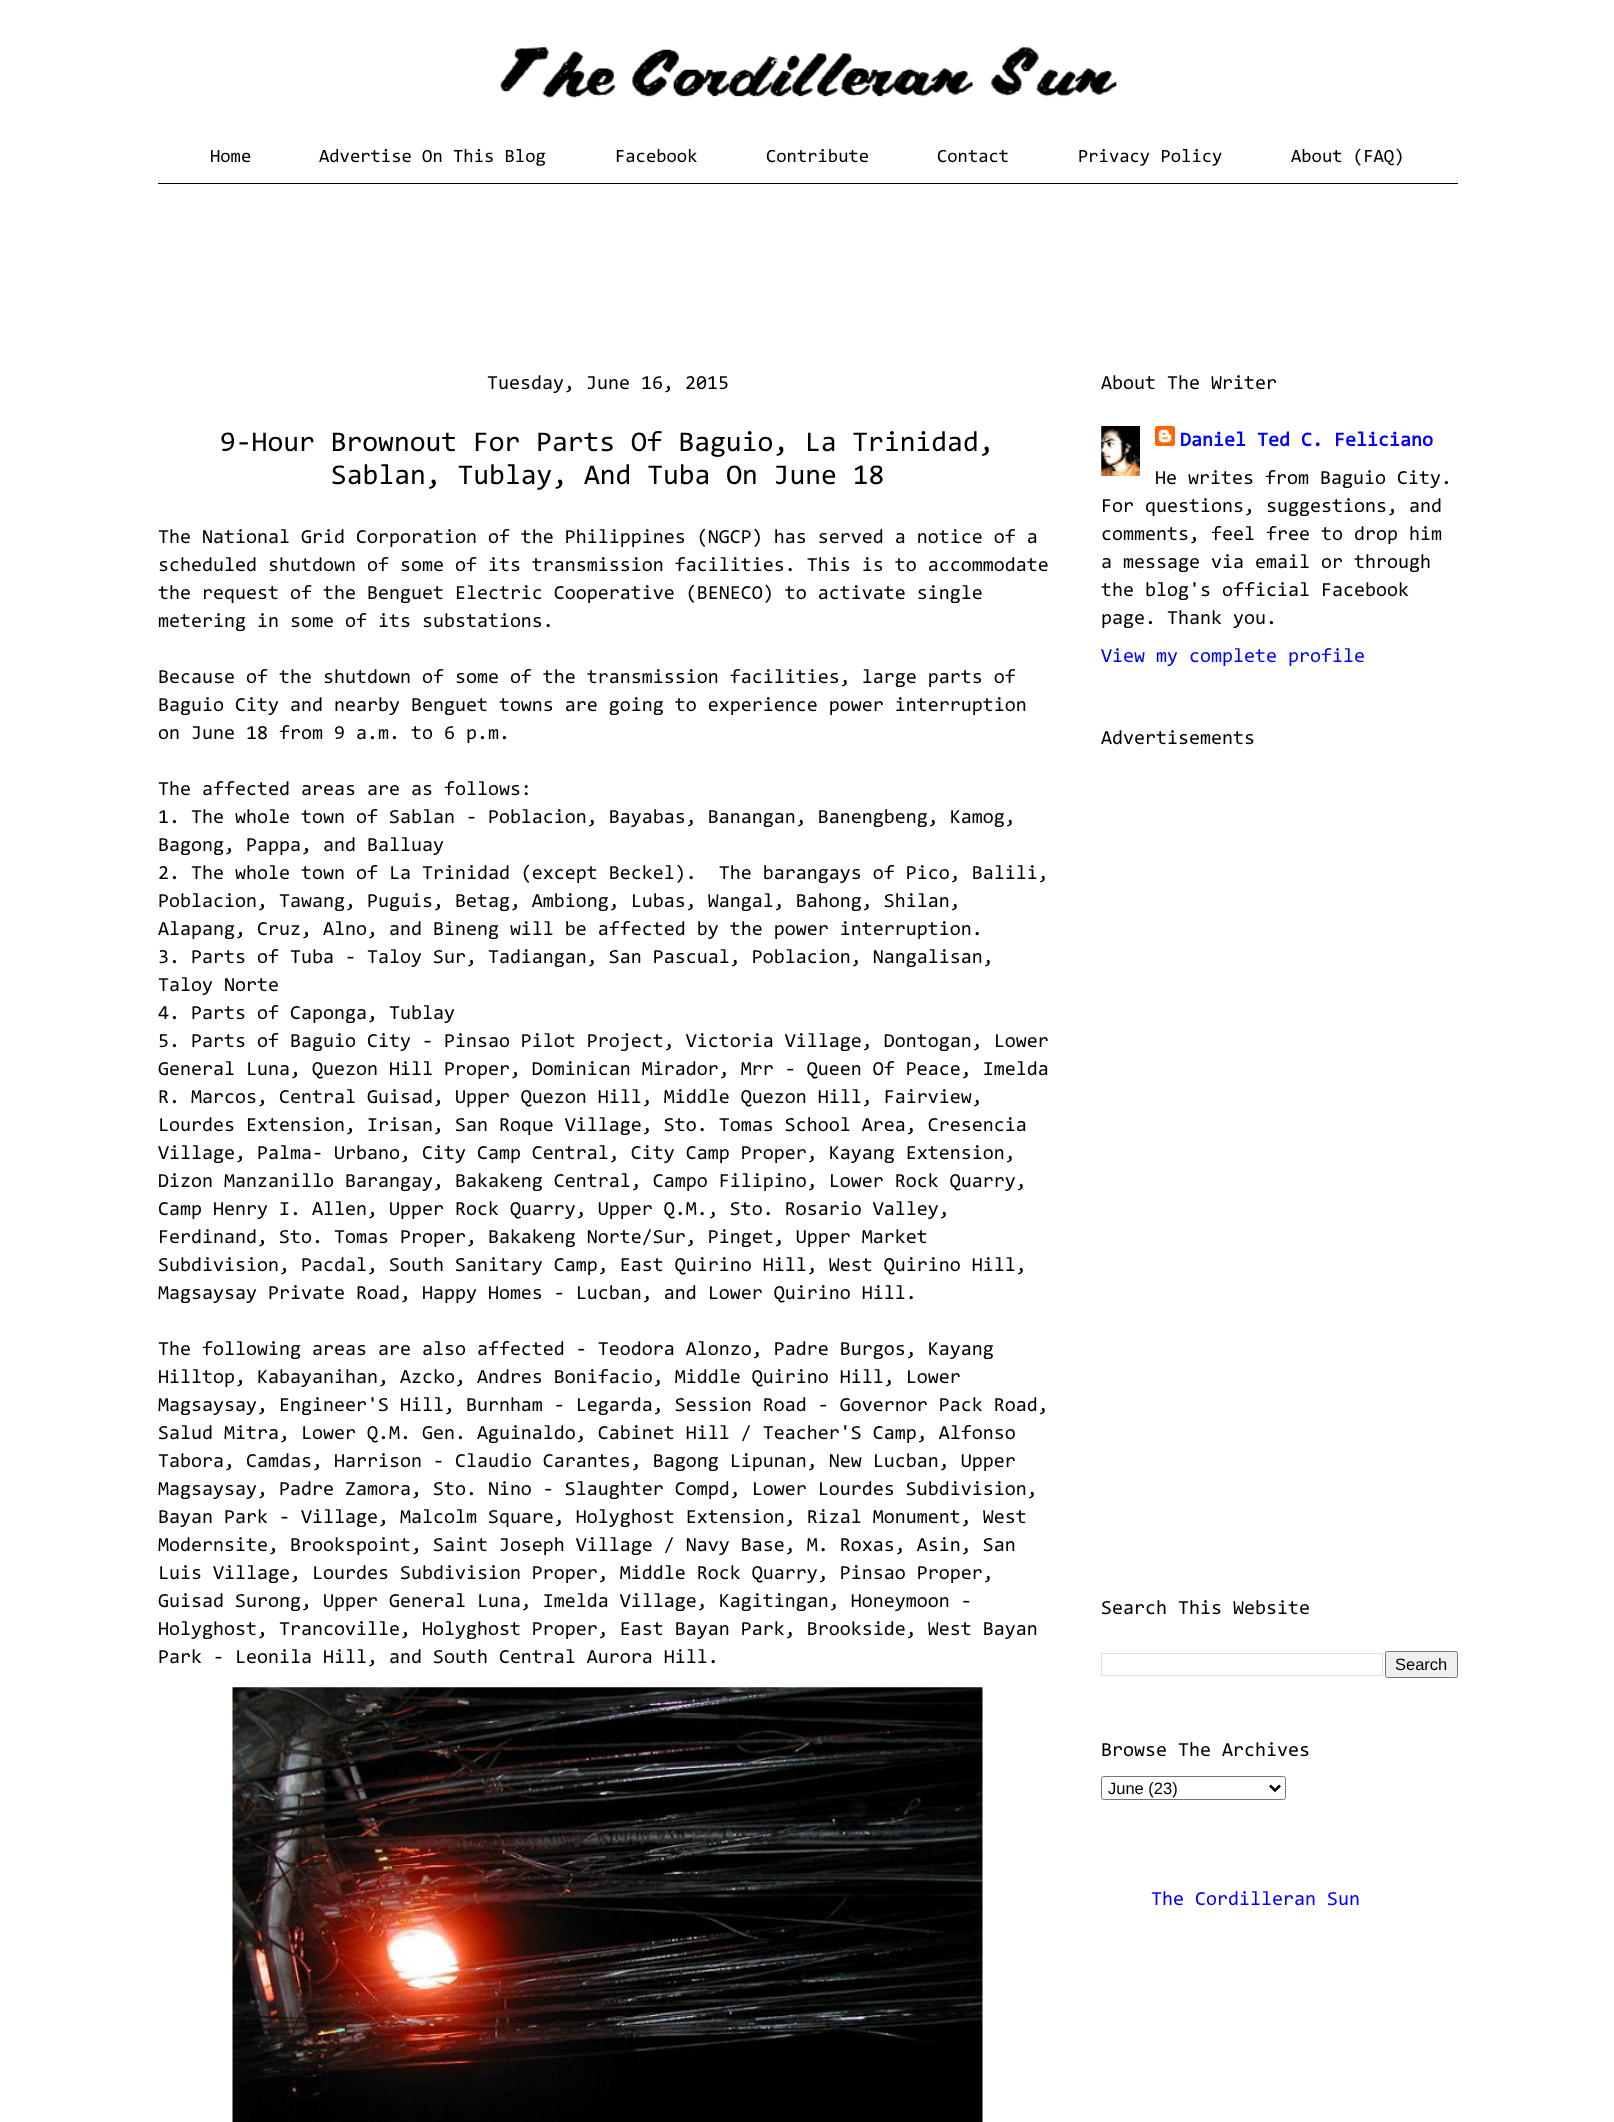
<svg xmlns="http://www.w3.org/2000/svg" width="1614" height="2122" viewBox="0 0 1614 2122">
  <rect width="100%" height="100%" fill="rgb(255,255,255)"/>
  <image x="499" y="47" width="618" height="51" href="pic1.png"/>
  <rect x="158" y="183" width="1300" height="1" fill="rgb(0,0,0)"/>
  <g font-family="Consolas" font-size="18.75" fill="rgb(0,0,0)">
    <text x="210" y="162">Home</text>
    <text x="319" y="162">Advertise On This Blog</text>
    <text x="615" y="162">Facebook</text>
    <text x="766" y="162">Contribute</text>
    <text x="937" y="162">Contact</text>
    <text x="1078" y="162">Privacy Policy</text>
    <text x="1291" y="162">About (FAQ)</text>
  </g>
  <text x="487" y="389" font-family="Consolas" font-size="20" fill="rgb(0,0,0)">Tuesday, June 16, 2015</text>
  <g font-family="Consolas" font-size="28.75" fill="rgb(0,0,0)">
    <text x="220" y="451">9-Hour Brownout For Parts Of Baguio, La Trinidad,</text>
    <text x="331" y="484">Sablan, Tublay, And Tuba On June 18</text>
  </g>
  <g font-family="Consolas" font-size="20" fill="rgb(0,0,0)">
    <text>
      <tspan x="158" y="543">The National Grid Corporation of the Philippines (NGCP) has served a notice of a</tspan>
      <tspan x="158" y="571">scheduled shutdown of some of its transmission facilities. This is to accommodate</tspan>
      <tspan x="158" y="599">the request of the Benguet Electric Cooperative (BENECO) to activate single</tspan>
      <tspan x="158" y="627">metering in some of its substations.</tspan>
    </text>
    <text>
      <tspan x="158" y="683">Because of the shutdown of some of the transmission facilities, large parts of</tspan>
      <tspan x="158" y="711">Baguio City and nearby Benguet towns are going to experience power interruption</tspan>
      <tspan x="158" y="739">on June 18 from 9 a.m. to 6 p.m.</tspan>
    </text>
    <text xml:space="preserve"><tspan x="158" y="795">The affected areas are as follows:</tspan><tspan x="158" y="823">1. The whole town of Sablan - Poblacion, Bayabas, Banangan, Banengbeng, Kamog,</tspan><tspan x="158" y="851">Bagong, Pappa, and Balluay</tspan><tspan x="158" y="879">2. The whole town of La Trinidad (except Beckel).  The barangays of Pico, Balili,</tspan><tspan x="158" y="907">Poblacion, Tawang, Puguis, Betag, Ambiong, Lubas, Wangal, Bahong, Shilan,</tspan><tspan x="158" y="935">Alapang, Cruz, Alno, and Bineng will be affected by the power interruption.</tspan><tspan x="158" y="963">3. Parts of Tuba - Taloy Sur, Tadiangan, San Pascual, Poblacion, Nangalisan,</tspan><tspan x="158" y="991">Taloy Norte</tspan><tspan x="158" y="1019">4. Parts of Caponga, Tublay</tspan><tspan x="158" y="1047">5. Parts of Baguio City - Pinsao Pilot Project, Victoria Village, Dontogan, Lower</tspan><tspan x="158" y="1075">General Luna, Quezon Hill Proper, Dominican Mirador, Mrr - Queen Of Peace, Imelda</tspan><tspan x="158" y="1103">R. Marcos, Central Guisad, Upper Quezon Hill, Middle Quezon Hill, Fairview,</tspan><tspan x="158" y="1131">Lourdes Extension, Irisan, San Roque Village, Sto. Tomas School Area, Cresencia</tspan><tspan x="158" y="1159">Village, Palma- Urbano, City Camp Central, City Camp Proper, Kayang Extension,</tspan><tspan x="158" y="1187">Dizon Manzanillo Barangay, Bakakeng Central, Campo Filipino, Lower Rock Quarry,</tspan><tspan x="158" y="1215">Camp Henry I. Allen, Upper Rock Quarry, Upper Q.M., Sto. Rosario Valley,</tspan><tspan x="158" y="1243">Ferdinand, Sto. Tomas Proper, Bakakeng Norte/Sur, Pinget, Upper Market</tspan><tspan x="158" y="1271">Subdivision, Pacdal, South Sanitary Camp, East Quirino Hill, West Quirino Hill,</tspan><tspan x="158" y="1299">Magsaysay Private Road, Happy Homes - Lucban, and Lower Quirino Hill.</tspan></text>
    <text>
      <tspan x="158" y="1355">The following areas are also affected - Teodora Alonzo, Padre Burgos, Kayang</tspan>
      <tspan x="158" y="1383">Hilltop, Kabayanihan, Azcko, Andres Bonifacio, Middle Quirino Hill, Lower</tspan>
      <tspan x="158" y="1411">Magsaysay, Engineer'S Hill, Burnham - Legarda, Session Road - Governor Pack Road,</tspan>
      <tspan x="158" y="1439">Salud Mitra, Lower Q.M. Gen. Aguinaldo, Cabinet Hill / Teacher'S Camp, Alfonso</tspan>
      <tspan x="158" y="1467">Tabora, Camdas, Harrison - Claudio Carantes, Bagong Lipunan, New Lucban, Upper</tspan>
      <tspan x="158" y="1495">Magsaysay, Padre Zamora, Sto. Nino - Slaughter Compd, Lower Lourdes Subdivision,</tspan>
      <tspan x="158" y="1523">Bayan Park - Village, Malcolm Square, Holyghost Extension, Rizal Monument, West</tspan>
      <tspan x="158" y="1551">Modernsite, Brookspoint, Saint Joseph Village / Navy Base, M. Roxas, Asin, San</tspan>
      <tspan x="158" y="1579">Luis Village, Lourdes Subdivision Proper, Middle Rock Quarry, Pinsao Proper,</tspan>
      <tspan x="158" y="1607">Guisad Surong, Upper General Luna, Imelda Village, Kagitingan, Honeymoon -</tspan>
      <tspan x="158" y="1635">Holyghost, Trancoville, Holyghost Proper, East Bayan Park, Brookside, West Bayan</tspan>
      <tspan x="158" y="1663">Park - Leonila Hill, and South Central Aurora Hill.</tspan>
    </text>
  </g>
  <image x="232" y="1687" width="751" height="435" href="pic2.png"/>
  <text x="1101" y="389" font-family="Consolas" font-size="20" fill="rgb(0,0,0)">About The Writer</text>
  <image x="1101" y="426" width="39" height="50" href="pic3.png"/>
  <image x="1155" y="426" width="20" height="20" href="pic4.png"/>
  <text x="1180" y="446" font-family="Consolas" font-size="20" font-weight="bold" fill="rgb(0,0,255)">Daniel Ted C. Feliciano</text>
  <g font-family="Consolas" font-size="20" fill="rgb(0,0,0)">
    <text x="1155" y="484">He writes from Baguio City.</text>
    <text>
      <tspan x="1101" y="512">For questions, suggestions, and</tspan>
      <tspan x="1101" y="540">comments, feel free to drop him</tspan>
      <tspan x="1101" y="568">a message via email or through</tspan>
      <tspan x="1101" y="596">the blog's official Facebook</tspan>
      <tspan x="1101" y="624">page. Thank you.</tspan>
    </text>
  </g>
  <text x="1101" y="662" font-family="Consolas" font-size="20" fill="rgb(0,0,255)">View my complete profile</text>
  <g font-family="Consolas" font-size="20" fill="rgb(0,0,0)">
    <text x="1101" y="744">Advertisements</text>
    <text x="1101" y="1614">Search This Website</text>
  </g>
  <rect x="1101.5" y="1653.5" width="281" height="22" fill="none" stroke="rgb(221,221,221)"/>
  <rect x="1385.5" y="1651.5" width="72" height="26" rx="2" fill="rgb(239,239,239)" stroke="rgb(118,118,118)"/>
  <text x="1395" y="1670" font-family="Liberation Sans" font-size="16.5" fill="rgb(0,0,0)">Search</text>
  <text x="1101" y="1756" font-family="Consolas" font-size="20" fill="rgb(0,0,0)">Browse The Archives</text>
  <rect x="1101.5" y="1776.5" width="184" height="23" rx="2" fill="none" stroke="rgb(118,118,118)"/>
  <path d="M1270 1785.5L1275 1790.5L1280 1785.5" fill="none" stroke="rgb(0,0,0)" stroke-width="2.5"/>
  <text x="1108" y="1794" font-family="Liberation Sans" font-size="16.5" fill="rgb(0,0,0)">June (23)</text>
  <text x="1151" y="1905" font-family="Consolas" font-size="20" fill="rgb(0,0,255)">The Cordilleran Sun</text>
</svg>
